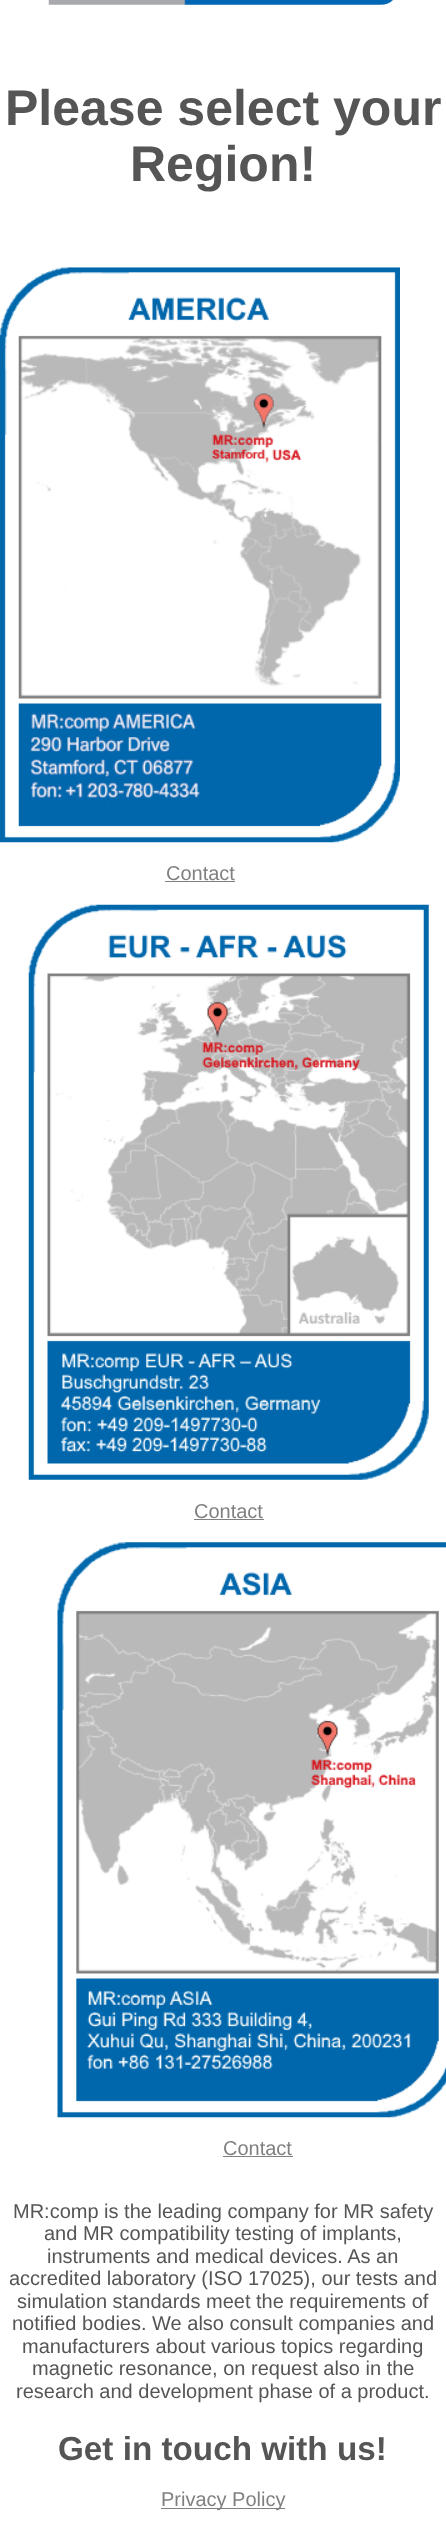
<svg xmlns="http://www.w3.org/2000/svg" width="446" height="2536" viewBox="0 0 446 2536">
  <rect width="100%" height="100%" fill="rgb(255,255,255)"/>
  <image x="48" y="0" width="345" height="5" href="pic1.png"/>
  <g font-family="Liberation Sans" font-size="50" font-weight="bold" fill="rgb(85,85,85)">
    <text x="5" y="125">Please select your</text>
    <text x="130" y="181">Region!</text>
  </g>
  <image x="0" y="267" width="400" height="576" href="pic2.png"/>
  <text x="166" y="880" font-family="Liberation Sans" font-size="20" fill="rgb(128,128,128)">Contact</text>
  <rect x="165" y="881" width="70" height="1" fill="rgb(128,128,128)"/>
  <image x="28" y="904" width="401" height="576" href="pic3.png"/>
  <text x="194" y="1518" font-family="Liberation Sans" font-size="20" fill="rgb(128,128,128)">Contact</text>
  <rect x="194" y="1519" width="70" height="1" fill="rgb(128,128,128)"/>
  <image x="57" y="1542" width="389" height="576" href="pic4.png"/>
  <text x="223" y="2155" font-family="Liberation Sans" font-size="20" fill="rgb(128,128,128)">Contact</text>
  <rect x="223" y="2156" width="70" height="1" fill="rgb(128,128,128)"/>
  <g font-family="Liberation Sans" font-size="20" fill="rgb(85,85,85)">
    <text x="13" y="2218">MR:comp is the leading company for MR safety</text>
    <text x="44" y="2240">and MR compatibility testing of implants,</text>
    <text x="47" y="2263">instruments and medical devices. As an</text>
    <text x="9" y="2285">accredited laboratory (ISO 17025), our tests and</text>
    <text x="17" y="2308">simulation standards meet the requirements of</text>
    <text x="12" y="2330">notified bodies. We also consult companies and</text>
    <text x="22" y="2353">manufacturers about various topics regarding</text>
    <text x="32" y="2375">magnetic resonance, on request also in the</text>
    <text x="16" y="2398">research and development phase of a product.</text>
  </g>
  <text x="58" y="2460" font-family="Liberation Sans" font-size="33.25" font-weight="bold" fill="rgb(85,85,85)">Get in touch with us!</text>
  <rect x="161" y="2508" width="124" height="1" fill="rgb(128,128,128)"/>
  <text x="161" y="2506" font-family="Liberation Sans" font-size="20" fill="rgb(128,128,128)">Privacy Policy</text>
</svg>
